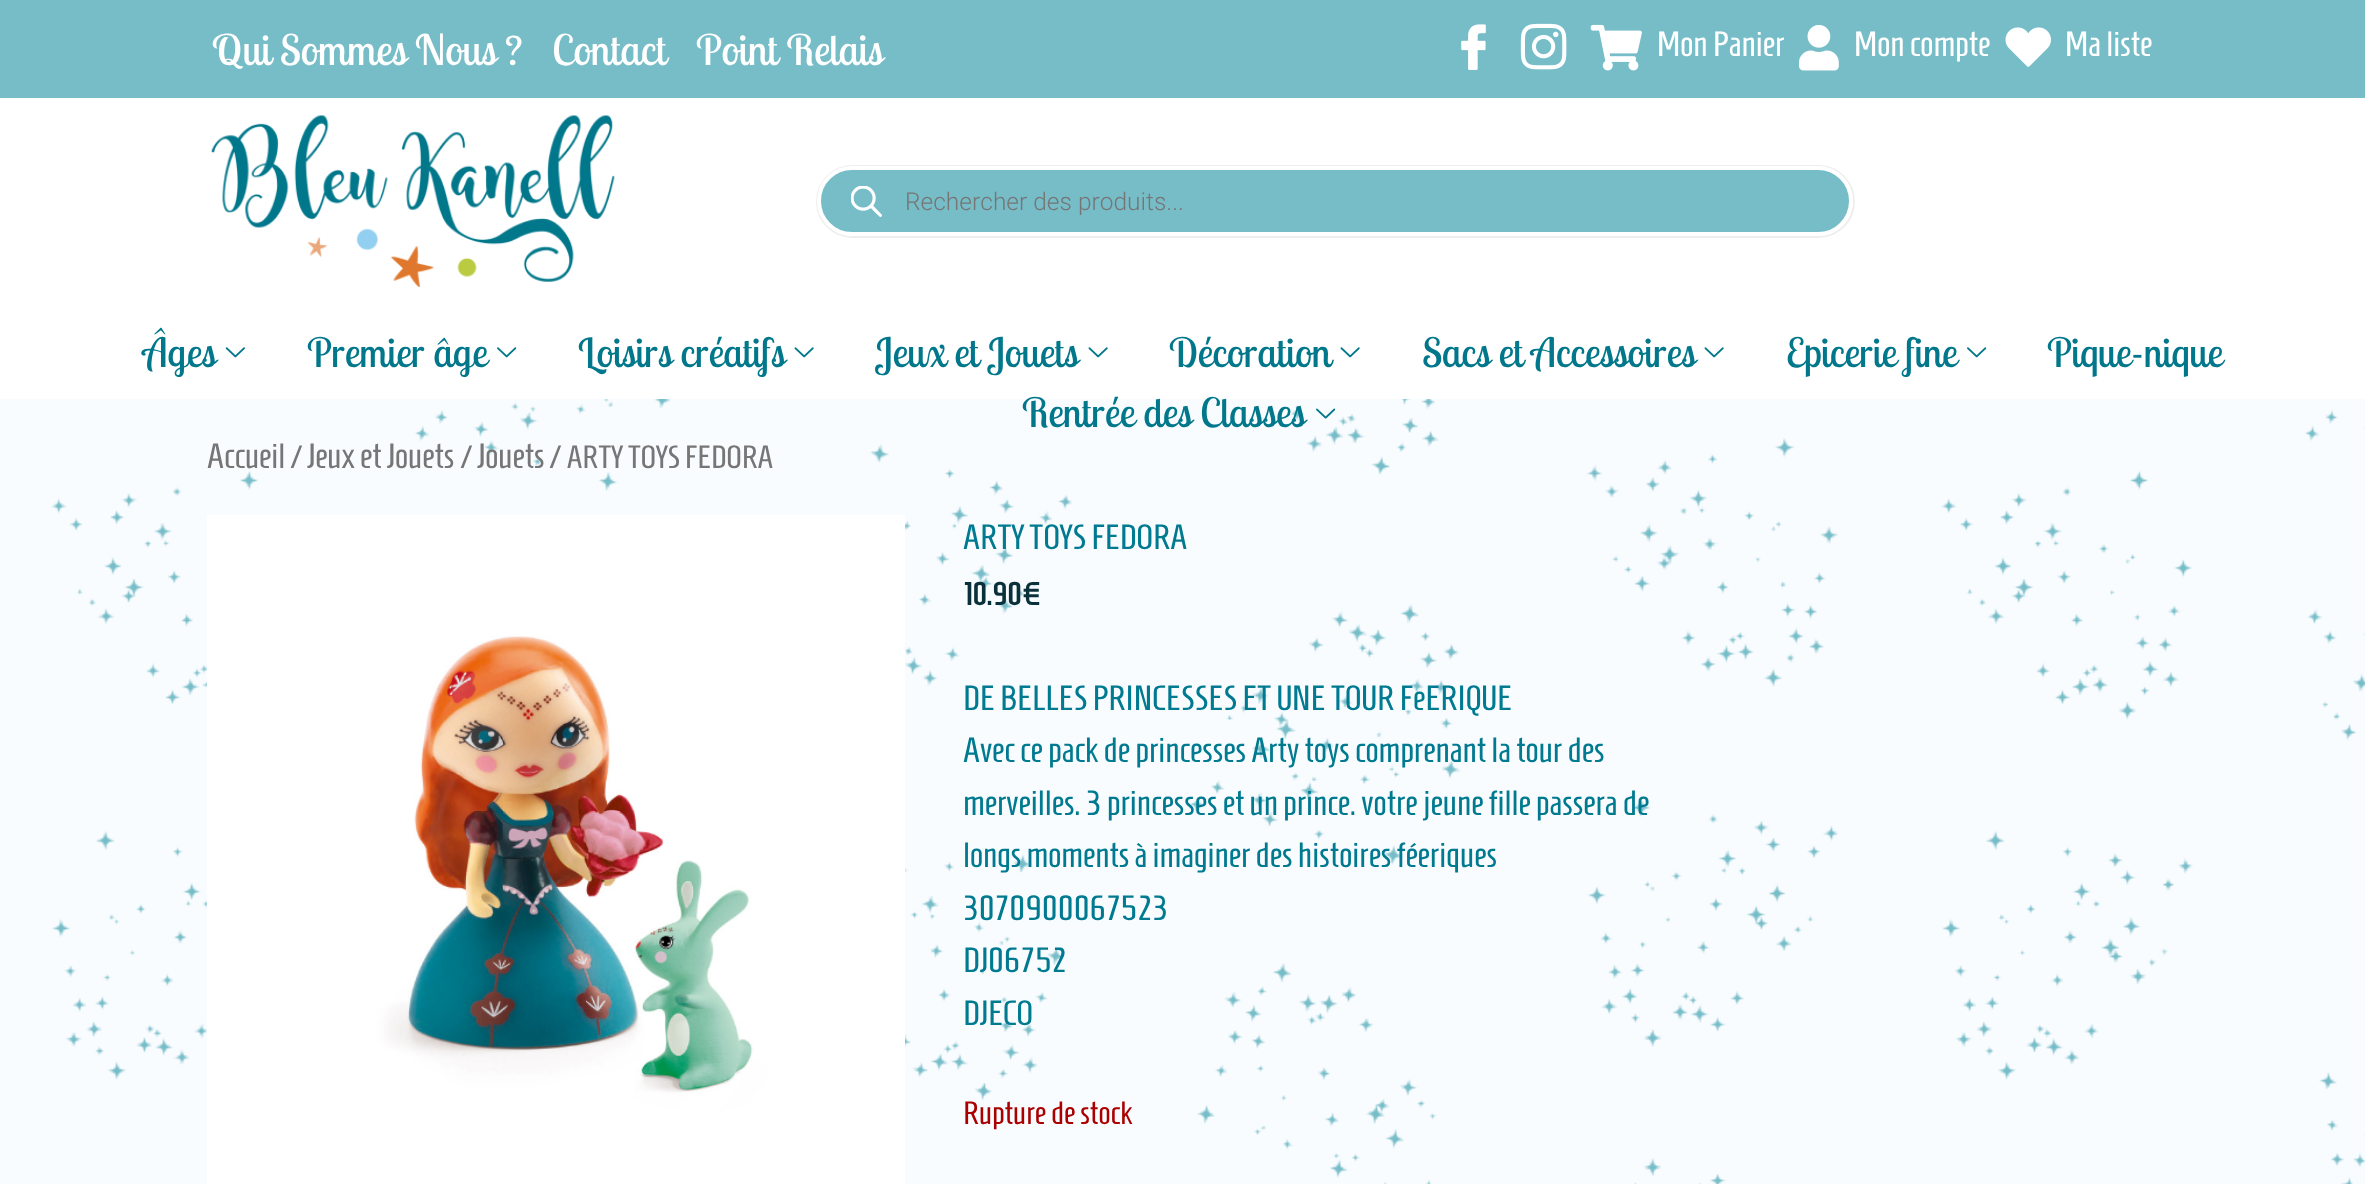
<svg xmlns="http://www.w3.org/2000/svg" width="2365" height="1184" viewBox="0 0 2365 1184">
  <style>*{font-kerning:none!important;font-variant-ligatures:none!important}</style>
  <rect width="100%" height="100%" fill="rgb(255,255,255)"/>
  <image x="0" y="399" width="2365" height="785" href="pic1.png"/>
  <rect x="0" y="0" width="2365" height="98" fill="rgb(118,189,200)"/>
  <g font-family="Lobster Two" font-size="42" fill="rgb(255,255,255)">
    <text x="212" y="65">Qui Sommes Nous ?</text>
    <text x="552" y="65">Contact</text>
    <text x="696" y="65">Point Relais</text>
  </g>
  <image x="1461" y="24" width="25" height="46" href="pic2.png"/>
  <image x="1520" y="23" width="47" height="47" href="pic3.png"/>
  <image x="1590" y="24" width="52" height="47" href="pic4.png"/>
  <text x="1657" y="56" font-family="Homenaje" font-size="35" fill="rgb(255,255,255)">Mon Panier</text>
  <image x="1799" y="25" width="40" height="46" href="pic5.png"/>
  <text x="1854" y="56" font-family="Homenaje" font-size="35" fill="rgb(255,255,255)">Mon compte</text>
  <image x="2005" y="27" width="46" height="40" href="pic6.png"/>
  <text x="2065" y="56" font-family="Homenaje" font-size="35" fill="rgb(255,255,255)">Ma liste</text>
  <image x="211" y="115" width="404" height="172" href="pic7.png"/>
  <rect x="817" y="166" width="1037" height="71" rx="35.5" fill="none" stroke="rgb(238,238,238)" stroke-width="2"/>
  <rect x="819" y="168" width="1032" height="66" rx="33" fill="rgb(118,189,200)" stroke="rgb(255,255,255)" stroke-width="4"/>
  <image x="851" y="186" width="31" height="31" href="pic8.png"/>
  <text x="905" y="210" font-family="Roboto" font-size="24.5" font-weight="300" fill="rgb(118,118,118)">Rechercher des produits...</text>
  <text x="143" y="367" font-family="Lobster Two" font-size="40.25" fill="rgb(0,119,138)">Âges</text>
  <image x="225" y="347" width="20" height="11" href="pic9.png"/>
  <text x="307" y="367" font-family="Lobster Two" font-size="40.25" fill="rgb(0,119,138)">Premier âge</text>
  <image x="497" y="347" width="20" height="11" href="pic10.png"/>
  <text x="578" y="367" font-family="Lobster Two" font-size="40.25" fill="rgb(0,119,138)">Loisirs créatifs</text>
  <image x="794" y="347" width="20" height="11" href="pic11.png"/>
  <text x="875" y="367" font-family="Lobster Two" font-size="40.25" fill="rgb(0,119,138)">Jeux et Jouets</text>
  <image x="1088" y="347" width="20" height="11" href="pic11.png"/>
  <text x="1169" y="367" font-family="Lobster Two" font-size="40.25" fill="rgb(0,119,138)">Décoration</text>
  <image x="1340" y="347" width="20" height="11" href="pic11.png"/>
  <text x="1422" y="367" font-family="Lobster Two" font-size="40.25" fill="rgb(0,119,138)">Sacs et Accessoires</text>
  <image x="1704" y="347" width="20" height="11" href="pic11.png"/>
  <text x="1786" y="367" font-family="Lobster Two" font-size="40.25" fill="rgb(0,119,138)">Epicerie fine</text>
  <image x="1967" y="347" width="20" height="11" href="pic10.png"/>
  <g font-family="Lobster Two" font-size="40.25" fill="rgb(0,119,138)">
    <text x="2047" y="367">Pique-nique</text>
    <text x="1022" y="427">Rentrée des Classes</text>
  </g>
  <image x="1316" y="408" width="20" height="11" href="pic12.png"/>
  <text x="207" y="468" font-family="Homenaje" font-size="35" fill="rgb(118,118,118)">Accueil</text>
  <text x="290" y="468" font-family="Homenaje" font-size="32.25" fill="rgb(118,118,118)">/</text>
  <text x="307" y="468" font-family="Homenaje" font-size="35" fill="rgb(118,118,118)">Jeux et Jouets</text>
  <text x="460" y="468" font-family="Homenaje" font-size="32.25" fill="rgb(118,118,118)">/</text>
  <text x="477" y="468" font-family="Homenaje" font-size="35" fill="rgb(118,118,118)">Jouets</text>
  <text x="549" y="468" font-family="Homenaje" font-size="32.25" fill="rgb(118,118,118)">/ ARTY TOYS FEDORA</text>
  <image x="207" y="515" width="698" height="669" href="pic13.png"/>
  <text x="963" y="549" font-family="Homenaje" font-size="35" fill="rgb(0,122,144)">ARTY TOYS FEDORA</text>
  <text x="963" y="605" font-family="Homenaje" font-size="31.5" font-weight="bold" fill="rgb(10,48,58)">10.90€</text>
  <g font-family="Homenaje" font-size="35" fill="rgb(0,122,144)">
    <text>
      <tspan x="963" y="710">DE BELLES PRINCESSES ET UNE TOUR FeERIQUE</tspan>
      <tspan x="963" y="762">Avec ce pack de princesses Arty toys comprenant la tour des</tspan>
      <tspan x="963" y="815">merveilles. 3 princesses et un prince. votre jeune fille passera de</tspan>
      <tspan x="963" y="867">longs moments à imaginer des histoires féeriques</tspan>
      <tspan x="963" y="920">3070900067523</tspan>
      <tspan x="963" y="972">DJ06752</tspan>
      <tspan x="963" y="1025">DJECO</tspan>
    </text>
  </g>
  <text x="963" y="1124" font-family="Homenaje" font-size="32.25" fill="rgb(170,0,0)">Rupture de stock</text>
</svg>
